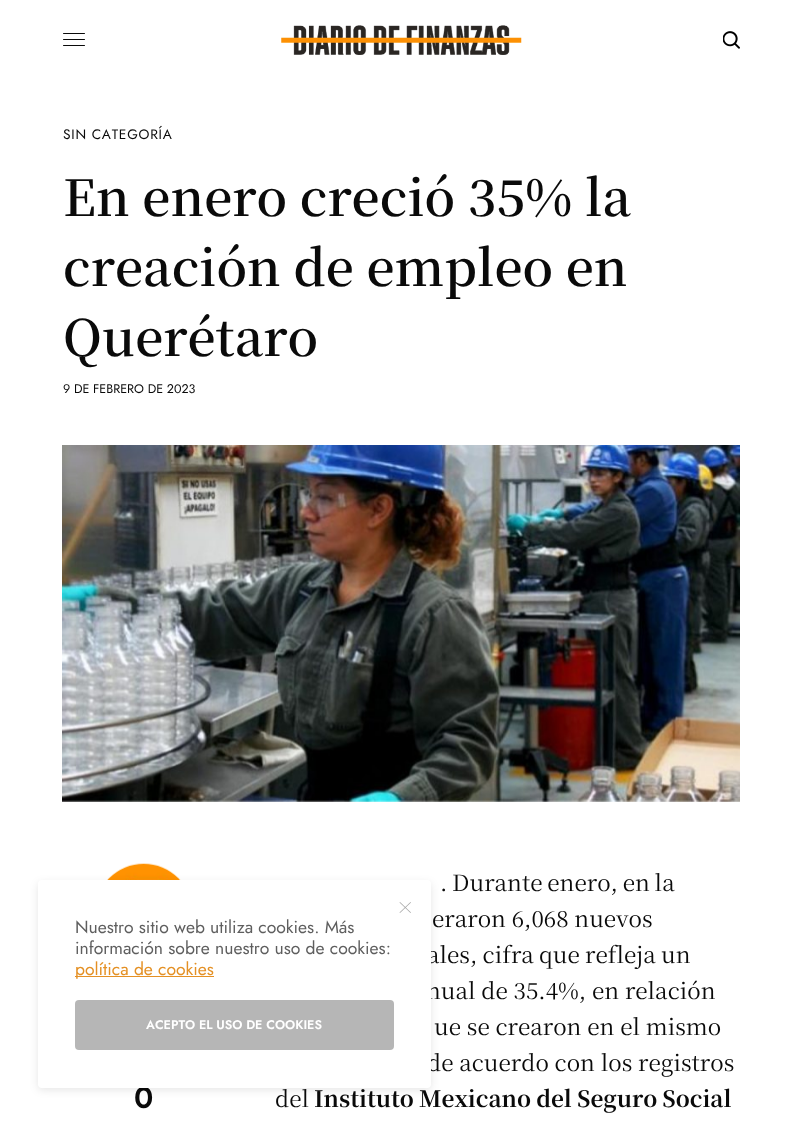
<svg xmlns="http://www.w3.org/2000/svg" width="802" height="1124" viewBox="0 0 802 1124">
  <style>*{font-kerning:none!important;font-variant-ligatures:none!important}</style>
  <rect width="100%" height="100%" fill="rgb(255,255,255)"/>
  <rect x="63" y="33" width="22" height="1" rx="0.5" fill="rgb(10,10,10)"/>
  <rect x="63" y="39" width="22" height="1" rx="0.5" fill="rgb(10,10,10)"/>
  <rect x="63" y="45" width="22" height="1" rx="0.5" fill="rgb(10,10,10)"/>
  <image x="281" y="25" width="241" height="30" href="pic1.png"/>
  <image x="723" y="31" width="17" height="18" href="pic2.png"/>
  <text x="63" y="139" font-family="Jost" font-size="13.75" letter-spacing="0.75" fill="rgb(10,10,10)">SIN CATEGORÍA</text>
  <g font-family="Noto Serif KR" font-size="50" font-weight="600" fill="rgb(10,10,10)">
    <text>
      <tspan x="63" y="216">En enero creció 35% la</tspan>
      <tspan x="63" y="286">creación de empleo en</tspan>
      <tspan x="63" y="356">Querétaro</tspan>
    </text>
  </g>
  <text x="63" y="393" font-family="Jost" font-size="12.5" fill="rgb(10,10,10)">9 DE FEBRERO DE 2023</text>
  <image x="62" y="445" width="678" height="357" href="pic3.png"/>
  <image x="107" y="863" width="74" height="17" href="pic4.png"/>
  <text x="134" y="1108" font-family="Jost" font-size="30" font-weight="600" fill="rgb(10,10,10)">0</text>
  <g font-family="Noto Serif KR" font-size="22.5" fill="rgb(10,10,10)">
    <text x="440" y="891" word-spacing="-1">. Durante enero, en la</text>
    <text x="432" y="927">eraron 6,068 nuevos</text>
    <text x="427" y="963" word-spacing="-0.5">ales, cifra que refleja un</text>
    <text x="426" y="999">nual de 35.4%, en relación</text>
    <text x="434" y="1035">ue se crearon en el mismo</text>
    <text x="427" y="1071">de acuerdo con los registros</text>
    <text x="275" y="1107">del</text>
  </g>
  <text x="314" y="1107" word-spacing="-0.5" font-family="Noto Serif KR" font-size="22.5" font-weight="bold" fill="rgb(10,10,10)">Instituto Mexicano del Seguro Social</text>
  <rect x="38" y="883" width="393" height="207" rx="4" fill="rgba(0,0,0,0.1)" filter="blur(4.5px)"/>
  <rect x="38" y="880" width="393" height="208" rx="4" fill="rgb(255,255,255)"/>
  <path d="M400 902L411 912.5L410.5 913L399.5 902.5Z" fill="rgb(163,163,163)"/>
  <path d="M399.5 912.5L410.5 902L411 902.5L400 913Z" fill="rgb(163,163,163)"/>
  <g font-family="Jost" font-size="17.5" fill="rgb(94,94,94)">
    <text>
      <tspan x="75" y="933">Nuestro sitio web utiliza cookies. Más</tspan>
      <tspan x="75" y="954">información sobre nuestro uso de cookies:</tspan>
    </text>
  </g>
  <rect x="75" y="976" width="139" height="1" fill="rgb(228,144,36)"/>
  <text x="75" y="975" font-family="Jost" font-size="17.5" fill="rgb(228,144,36)">política de cookies</text>
  <rect x="75" y="1000" width="319" height="50" rx="4" fill="rgb(182,182,182)"/>
  <text x="146" y="1029" font-family="Jost" font-size="12.5" font-weight="600" fill="rgb(255,255,255)">ACEPTO EL USO DE COOKIES</text>
</svg>
